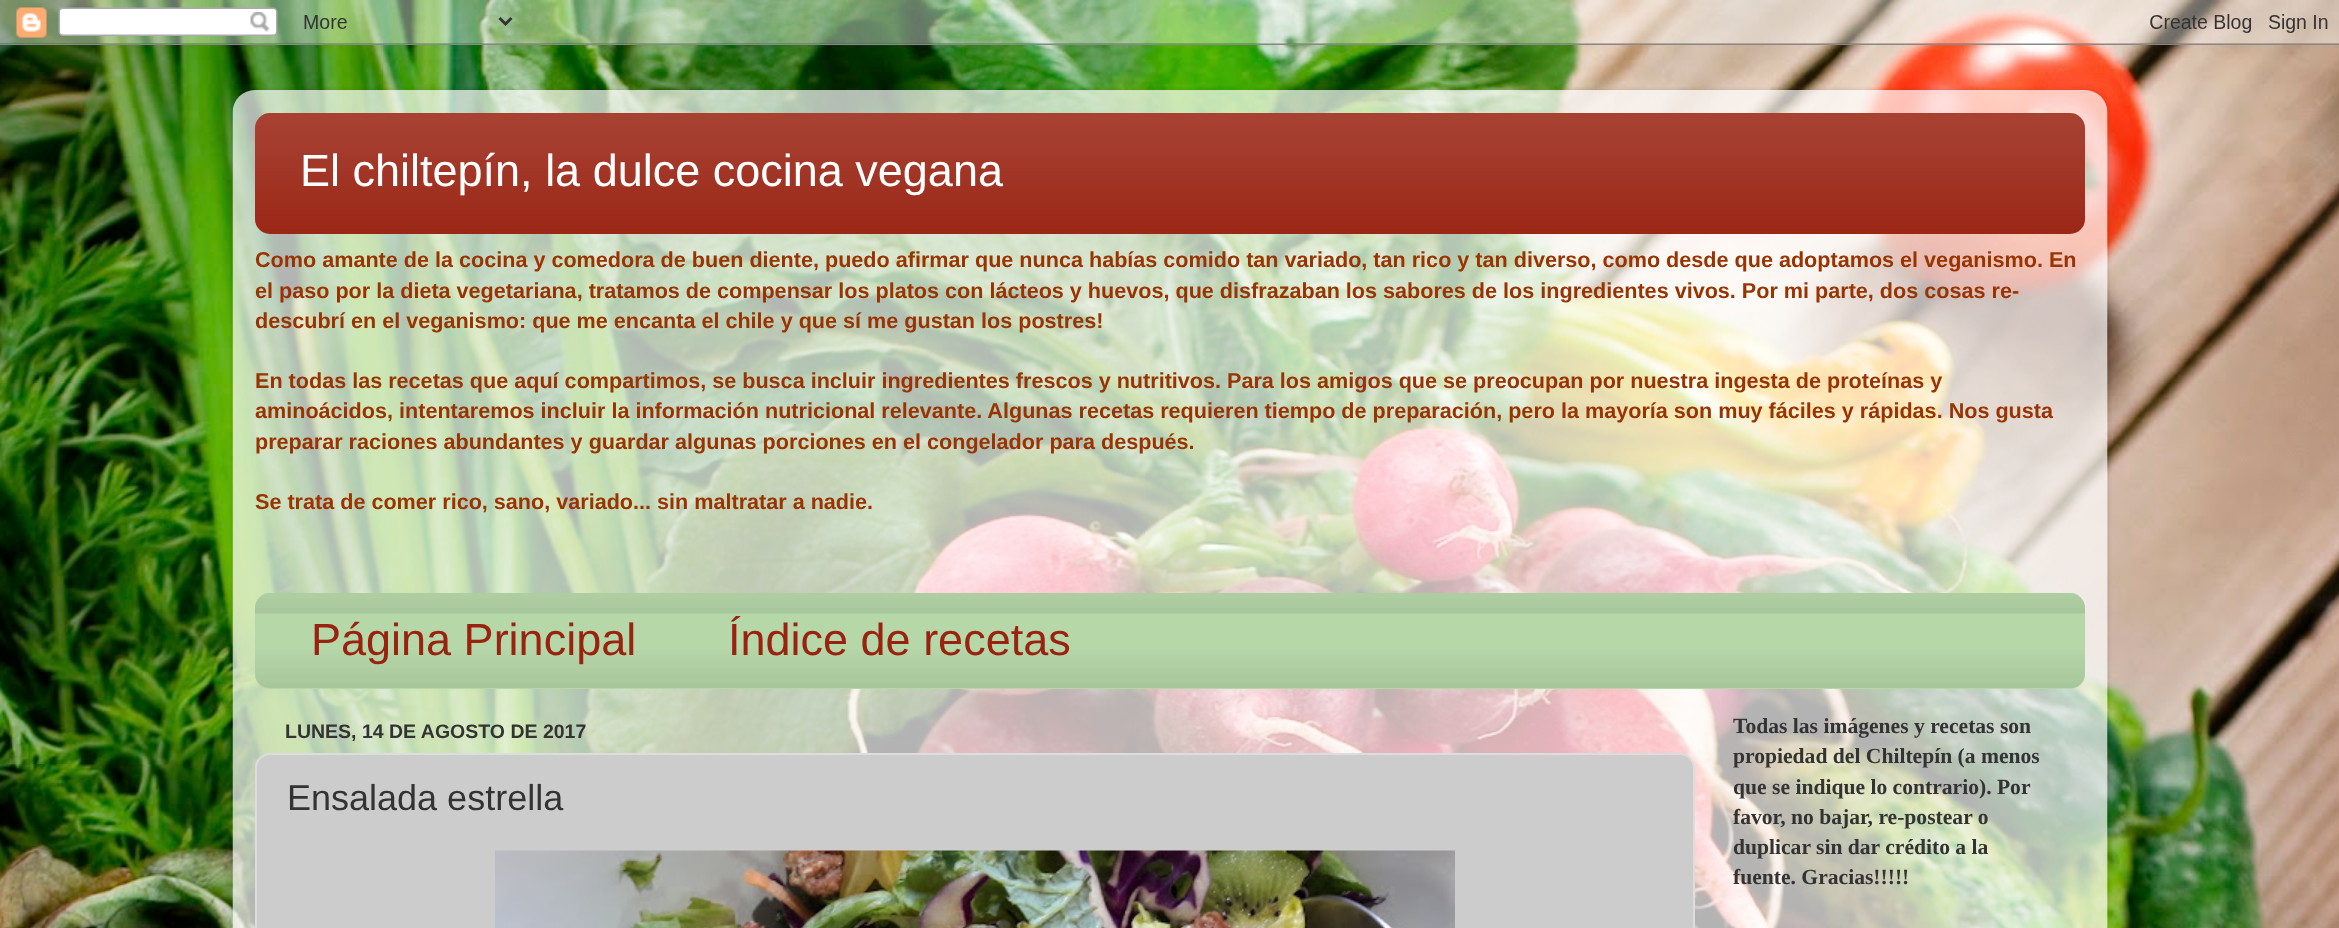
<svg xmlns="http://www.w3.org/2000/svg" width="2339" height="928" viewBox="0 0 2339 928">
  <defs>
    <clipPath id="clip1"><path d="M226 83H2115V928H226ZM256 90H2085C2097.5 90 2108 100.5 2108 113V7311C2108 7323.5 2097.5 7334 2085 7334H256C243.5 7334 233 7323.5 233 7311V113C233 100.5 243.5 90 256 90Z" clip-rule="evenodd"/></clipPath>
  </defs>
  <rect width="100%" height="100%" fill="rgb(255,255,255)"/>
  <image x="0" y="0" width="2339" height="928" href="pic1.png"/>
  <image x="0" y="0" width="2339" height="45" href="pic2.png"/>
  <g clip-path="url(#clip1)">
    <rect x="233" y="90" width="1875" height="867" rx="23" fill="rgba(0,0,0,0.15)" filter="blur(2px)"/>
  </g>
  <image x="232" y="90" width="1876" height="838" href="pic3.png"/>
  <rect x="255" y="113" width="1830" height="121" rx="15" fill="rgb(153,34,17)"/>
  <image x="255" y="113" width="1830" height="121" href="pic4.png"/>
  <text x="300" y="186" font-family="Liberation Sans" font-size="45" fill="rgb(255,255,255)">El chiltepín, la dulce cocina vegana</text>
  <g font-family="Liberation Sans" font-size="21.6" font-weight="bold" fill="rgb(153,51,0)">
    <text>
      <tspan x="255" y="267">Como amante de la cocina y comedora de buen diente, puedo afirmar que nunca habías comido tan variado, tan rico y tan diverso, como desde que adoptamos el veganismo. En</tspan>
      <tspan x="255" y="298">el paso por la dieta vegetariana, tratamos de compensar los platos con lácteos y huevos, que disfrazaban los sabores de los ingredientes vivos. Por mi parte, dos cosas re-</tspan>
      <tspan x="255" y="328">descubrí en el veganismo: que me encanta el chile y que sí me gustan los postres!</tspan>
    </text>
    <text>
      <tspan x="255" y="388">En todas las recetas que aquí compartimos, se busca incluir ingredientes frescos y nutritivos. Para los amigos que se preocupan por nuestra ingesta de proteínas y</tspan>
      <tspan x="255" y="418">aminoácidos, intentaremos incluir la información nutricional relevante. Algunas recetas requieren tiempo de preparación, pero la mayoría son muy fáciles y rápidas. Nos gusta</tspan>
      <tspan x="255" y="449">preparar raciones abundantes y guardar algunas porciones en el congelador para después.</tspan>
    </text>
    <text x="255" y="509">Se trata de comer rico, sano, variado... sin maltratar a nadie.</text>
  </g>
  <rect x="255" y="593" width="1830" height="96" rx="15" fill="rgb(182,215,168)"/>
  <image x="255" y="593" width="1830" height="95" href="pic5.png"/>
  <g font-family="Liberation Sans" font-size="45" fill="rgb(153,34,17)">
    <text x="311" y="655">Página Principal</text>
    <text x="728" y="655">Índice de recetas</text>
  </g>
  <text x="285" y="738" font-family="Liberation Sans" font-size="19.5" font-weight="bold" fill="rgb(51,51,51)">LUNES, 14 DE AGOSTO DE 2017</text>
  <rect x="256" y="754" width="1438" height="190" rx="14" fill="rgb(204,204,204)" stroke="rgb(221,221,221)" stroke-width="2"/>
  <text x="287" y="810" font-family="Liberation Sans" font-size="36" fill="rgb(51,51,51)">Ensalada estrella</text>
  <image x="495" y="850" width="960" height="78" href="pic6.png"/>
  <g font-family="Liberation Serif" font-size="21.6" font-weight="bold" fill="rgb(51,51,51)">
    <text>
      <tspan x="1733" y="733">Todas las imágenes y recetas son</tspan>
      <tspan x="1733" y="763">propiedad del Chiltepín (a menos</tspan>
      <tspan x="1733" y="794">que se indique lo contrario). Por</tspan>
      <tspan x="1733" y="824">favor, no bajar, re-postear o</tspan>
      <tspan x="1733" y="854">duplicar sin dar crédito a la</tspan>
      <tspan x="1733" y="884">fuente. Gracias!!!!!</tspan>
    </text>
  </g>
</svg>
